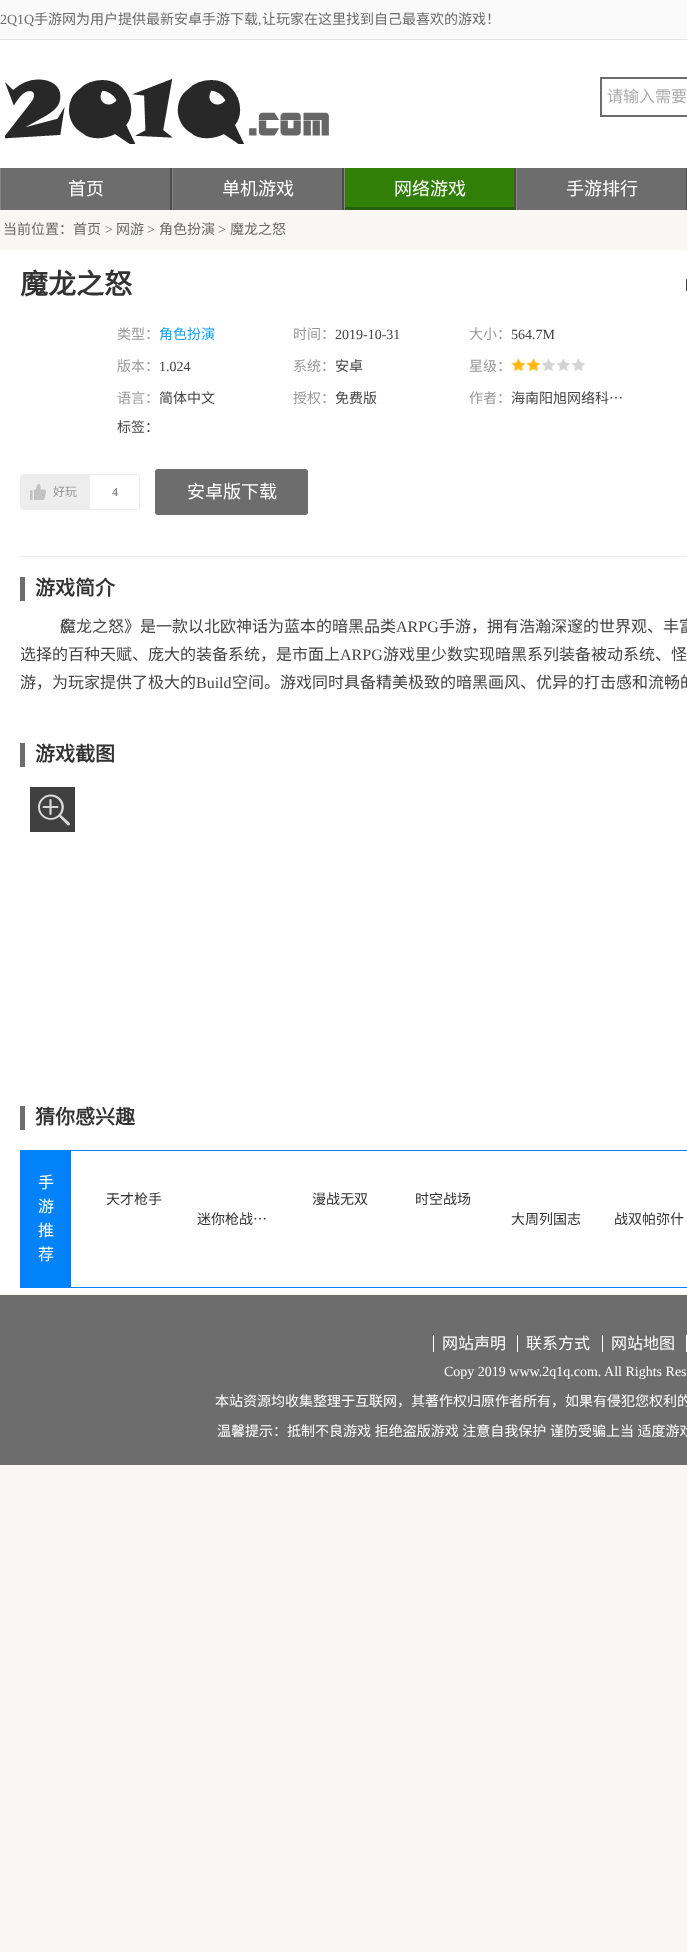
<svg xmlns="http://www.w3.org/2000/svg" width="687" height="1952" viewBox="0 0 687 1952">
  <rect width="100%" height="100%" fill="rgb(248,247,243)"/>
  <rect x="0" y="0" width="687" height="39" fill="rgb(250,250,250)"/>
  <rect x="0" y="39" width="687" height="1" fill="rgb(226,226,226)"/>
  <text x="0" y="24" font-family="Liberation Serif" font-size="14" fill="rgb(105,105,105)">2Q1Q</text>
  <text x="34" y="24" font-family="Noto Sans CJK SC" font-size="14" fill="rgb(105,105,105)">手游网为用户提供最新安卓手游下载</text>
  <text x="258" y="24" font-family="Liberation Serif" font-size="14" fill="rgb(105,105,105)">,</text>
  <text x="262" y="24" font-family="Noto Sans CJK SC" font-size="14" fill="rgb(105,105,105)">让玩家在这里找到自己最喜欢的游戏！</text>
  <rect x="0" y="40" width="687" height="128" fill="rgb(255,255,255)"/>
  <image x="5" y="79" width="324" height="65" href="pic1.png"/>
  <rect x="600" y="77" width="87" height="2" fill="rgb(110,109,109)"/>
  <rect x="600" y="115" width="87" height="2" fill="rgb(110,109,109)"/>
  <rect x="600" y="77" width="2" height="40" fill="rgb(110,109,109)"/>
  <text x="607" y="102" font-family="Noto Sans CJK SC" font-size="16" fill="rgb(172,172,172)">请输入需要</text>
  <rect x="1" y="168" width="685" height="42" fill="rgb(110,109,109)"/>
  <rect x="170" y="168" width="2" height="42" fill="rgb(76,76,76)"/>
  <rect x="0" y="168" width="1" height="42" fill="rgb(134,134,134)"/>
  <text x="68" y="195" font-family="Noto Sans CJK SC" font-size="18" fill="rgb(255,255,255)">首页</text>
  <rect x="342" y="168" width="2" height="42" fill="rgb(76,76,76)"/>
  <rect x="172" y="168" width="1" height="42" fill="rgb(134,134,134)"/>
  <text x="222" y="195" font-family="Noto Sans CJK SC" font-size="18" fill="rgb(255,255,255)">单机游戏</text>
  <rect x="514" y="168" width="2" height="42" fill="rgb(76,76,76)"/>
  <rect x="344" y="168" width="1" height="42" fill="rgb(134,134,134)"/>
  <rect x="345" y="168" width="169" height="39" fill="rgb(50,127,8)"/>
  <rect x="345" y="207" width="169" height="3" fill="rgb(38,96,7)"/>
  <text x="394" y="195" font-family="Noto Sans CJK SC" font-size="18" fill="rgb(255,255,255)">网络游戏</text>
  <rect x="686" y="168" width="1" height="42" fill="rgb(76,76,76)"/>
  <rect x="516" y="168" width="1" height="42" fill="rgb(134,134,134)"/>
  <text x="566" y="195" font-family="Noto Sans CJK SC" font-size="18" fill="rgb(255,255,255)">手游排行</text>
  <text x="3" y="234" font-family="Noto Sans CJK SC" font-size="14" fill="rgb(105,105,105)">当前位置：首页</text>
  <text x="105" y="234" font-family="Liberation Serif" font-size="14" fill="rgb(105,105,105)">&gt;</text>
  <text x="116" y="234" font-family="Noto Sans CJK SC" font-size="14" fill="rgb(105,105,105)">网游</text>
  <text x="147" y="234" font-family="Liberation Serif" font-size="14" fill="rgb(105,105,105)">&gt;</text>
  <text x="159" y="234" font-family="Noto Sans CJK SC" font-size="14" fill="rgb(105,105,105)">角色扮演</text>
  <text x="218" y="234" font-family="Liberation Serif" font-size="14" fill="rgb(105,105,105)">&gt;</text>
  <text x="230" y="234" font-family="Noto Sans CJK SC" font-size="14" fill="rgb(105,105,105)">魔龙之怒</text>
  <rect x="0" y="250" width="687" height="1043" fill="rgb(255,255,255)"/>
  <rect x="20" y="556" width="667" height="1" fill="rgb(237,237,237)"/>
  <text x="20" y="294" font-family="Noto Sans CJK SC" font-size="28" font-weight="bold" fill="rgb(51,51,51)">魔龙之怒</text>
  <text x="685" y="289" font-family="Liberation Serif" font-size="14" fill="rgb(51,51,51)">[</text>
  <text x="117" y="339" font-family="Noto Sans CJK SC" font-size="14" fill="rgb(153,153,153)">类型：</text>
  <text x="159" y="339" font-family="Noto Sans CJK SC" font-size="14" fill="rgb(14,161,246)">角色扮演</text>
  <text x="293" y="339" font-family="Noto Sans CJK SC" font-size="14" fill="rgb(153,153,153)">时间：</text>
  <text x="335" y="339" font-family="Liberation Serif" font-size="14" fill="rgb(68,68,68)">2019-10-31</text>
  <text x="469" y="339" font-family="Noto Sans CJK SC" font-size="14" fill="rgb(153,153,153)">大小：</text>
  <text x="511" y="339" font-family="Liberation Serif" font-size="14" fill="rgb(68,68,68)">564.7M</text>
  <text x="117" y="371" font-family="Noto Sans CJK SC" font-size="14" fill="rgb(153,153,153)">版本：</text>
  <text x="159" y="371" font-family="Liberation Serif" font-size="14" fill="rgb(68,68,68)">1.024</text>
  <text x="293" y="371" font-family="Noto Sans CJK SC" font-size="14" fill="rgb(153,153,153)">系统：</text>
  <text x="335" y="371" font-family="Noto Sans CJK SC" font-size="14" fill="rgb(68,68,68)">安卓</text>
  <text x="469" y="371" font-family="Noto Sans CJK SC" font-size="14" fill="rgb(153,153,153)">星级：</text>
  <image x="511" y="358" width="74" height="13" href="pic2.png"/>
  <text x="117" y="403" font-family="Noto Sans CJK SC" font-size="14" fill="rgb(153,153,153)">语言：</text>
  <text x="159" y="403" font-family="Noto Sans CJK SC" font-size="14" fill="rgb(68,68,68)">简体中文</text>
  <text x="293" y="403" font-family="Noto Sans CJK SC" font-size="14" fill="rgb(153,153,153)">授权：</text>
  <text x="335" y="403" font-family="Noto Sans CJK SC" font-size="14" fill="rgb(68,68,68)">免费版</text>
  <text x="469" y="403" font-family="Noto Sans CJK SC" font-size="14" fill="rgb(153,153,153)">作者：</text>
  <g font-family="Noto Sans CJK SC" font-size="14" fill="rgb(68,68,68)">
    <text x="511" y="403">海南阳旭网络科…</text>
    <text x="117" y="432">标签：</text>
  </g>
  <rect x="20.5" y="474.5" width="119" height="35" rx="2.5" fill="none" stroke="rgb(237,237,237)"/>
  <rect x="21" y="475" width="69" height="34" fill="rgb(237,237,237)"/>
  <image x="30" y="484" width="16" height="16" href="pic3.png"/>
  <text x="53" y="496" font-family="Noto Sans CJK SC" font-size="12" fill="rgb(153,153,153)">好玩</text>
  <text x="112" y="496" font-family="Liberation Serif" font-size="12" fill="rgb(105,105,105)">4</text>
  <rect x="155" y="469" width="153" height="46" rx="3" fill="rgb(110,109,109)"/>
  <text x="187" y="498" font-family="Noto Sans CJK SC" font-size="18" fill="rgb(255,255,255)">安卓版下载</text>
  <rect x="20" y="577" width="5" height="24" fill="rgb(110,109,109)"/>
  <text x="35" y="595" font-family="Noto Sans CJK SC" font-size="20" font-weight="bold" fill="rgb(51,51,51)">游戏简介</text>
  <text x="52" y="632" font-family="Noto Sans CJK SC" font-size="16" fill="rgb(68,68,68)">《</text>
  <text x="60" y="632" font-family="Noto Sans CJK SC" font-size="16" fill="rgb(68,68,68)">魔龙之怒》是一款以北欧神话为蓝本的暗黑品类</text>
  <text x="396" y="632" font-family="Liberation Serif" font-size="16" fill="rgb(68,68,68)">ARPG</text>
  <g font-family="Noto Sans CJK SC" font-size="16" fill="rgb(68,68,68)">
    <text x="439" y="632">手游，拥有浩瀚深邃的世界观、丰富</text>
    <text x="20" y="660">选择的百种天赋、庞大的装备系统，是市面上</text>
  </g>
  <text x="340" y="660" font-family="Liberation Serif" font-size="16" fill="rgb(68,68,68)">ARPG</text>
  <g font-family="Noto Sans CJK SC" font-size="16" fill="rgb(68,68,68)">
    <text x="383" y="660">游戏里少数实现暗黑系列装备被动系统、怪</text>
    <text x="20" y="688">游，为玩家提供了极大的</text>
  </g>
  <text x="196" y="688" font-family="Liberation Serif" font-size="16" fill="rgb(68,68,68)">Build</text>
  <text x="232" y="688" font-family="Noto Sans CJK SC" font-size="16" fill="rgb(68,68,68)">空间。游戏同时具备精美极致的暗黑画风、优异的打击感和流畅的</text>
  <rect x="20" y="743" width="5" height="24" fill="rgb(110,109,109)"/>
  <text x="35" y="761" font-family="Noto Sans CJK SC" font-size="20" font-weight="bold" fill="rgb(51,51,51)">游戏截图</text>
  <rect x="30" y="787" width="45" height="45" fill="rgb(128,128,128)"/>
  <image x="30" y="787" width="45" height="45" href="pic4.png"/>
  <rect x="20" y="1106" width="5" height="24" fill="rgb(110,109,109)"/>
  <text x="35" y="1124" font-family="Noto Sans CJK SC" font-size="20" font-weight="bold" fill="rgb(51,51,51)">猜你感兴趣</text>
  <rect x="20.5" y="1150.5" width="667" height="137" fill="none" stroke="rgb(2,131,251)"/>
  <rect x="21" y="1151" width="50" height="136" fill="rgb(2,131,251)"/>
  <g font-family="Noto Sans CJK SC" font-size="16" fill="rgb(255,255,255)">
    <text>
      <tspan x="38" y="1188">手</tspan>
      <tspan x="38" y="1212">游</tspan>
      <tspan x="38" y="1236">推</tspan>
      <tspan x="38" y="1260">荐</tspan>
    </text>
  </g>
  <g font-family="Noto Sans CJK SC" font-size="14" fill="rgb(51,51,51)">
    <text x="106" y="1204">天才枪手</text>
    <text x="312" y="1204">漫战无双</text>
    <text x="415" y="1204">时空战场</text>
    <text x="197" y="1224">迷你枪战…</text>
    <text x="511" y="1224">大周列国志</text>
    <text x="614" y="1224">战双帕弥什</text>
  </g>
  <rect x="0" y="1295" width="687" height="170" fill="rgb(110,109,109)"/>
  <text x="442" y="1349" font-family="Noto Sans CJK SC" font-size="16" fill="rgb(255,255,255)">网站声明</text>
  <rect x="433" y="1335" width="1" height="17" fill="rgb(255,255,255)"/>
  <text x="526" y="1349" font-family="Noto Sans CJK SC" font-size="16" fill="rgb(255,255,255)">联系方式</text>
  <rect x="517" y="1335" width="1" height="17" fill="rgb(255,255,255)"/>
  <text x="611" y="1349" font-family="Noto Sans CJK SC" font-size="16" fill="rgb(255,255,255)">网站地图</text>
  <rect x="602" y="1335" width="1" height="17" fill="rgb(255,255,255)"/>
  <rect x="686" y="1335" width="1" height="17" fill="rgb(255,255,255)"/>
  <text x="444" y="1376" font-family="Liberation Serif" font-size="14" fill="rgb(255,255,255)">Copy 2019 www.2q1q.com. All Rights Res</text>
  <g font-family="Noto Sans CJK SC" font-size="14" fill="rgb(255,255,255)">
    <text x="215" y="1406">本站资源均收集整理于互联网，其著作权归原作者所有，如果有侵犯您权利的</text>
    <text x="217" y="1436" word-spacing="0.5">温馨提示：抵制不良游戏 拒绝盗版游戏 注意自我保护 谨防受骗上当 适度游戏</text>
  </g>
</svg>
